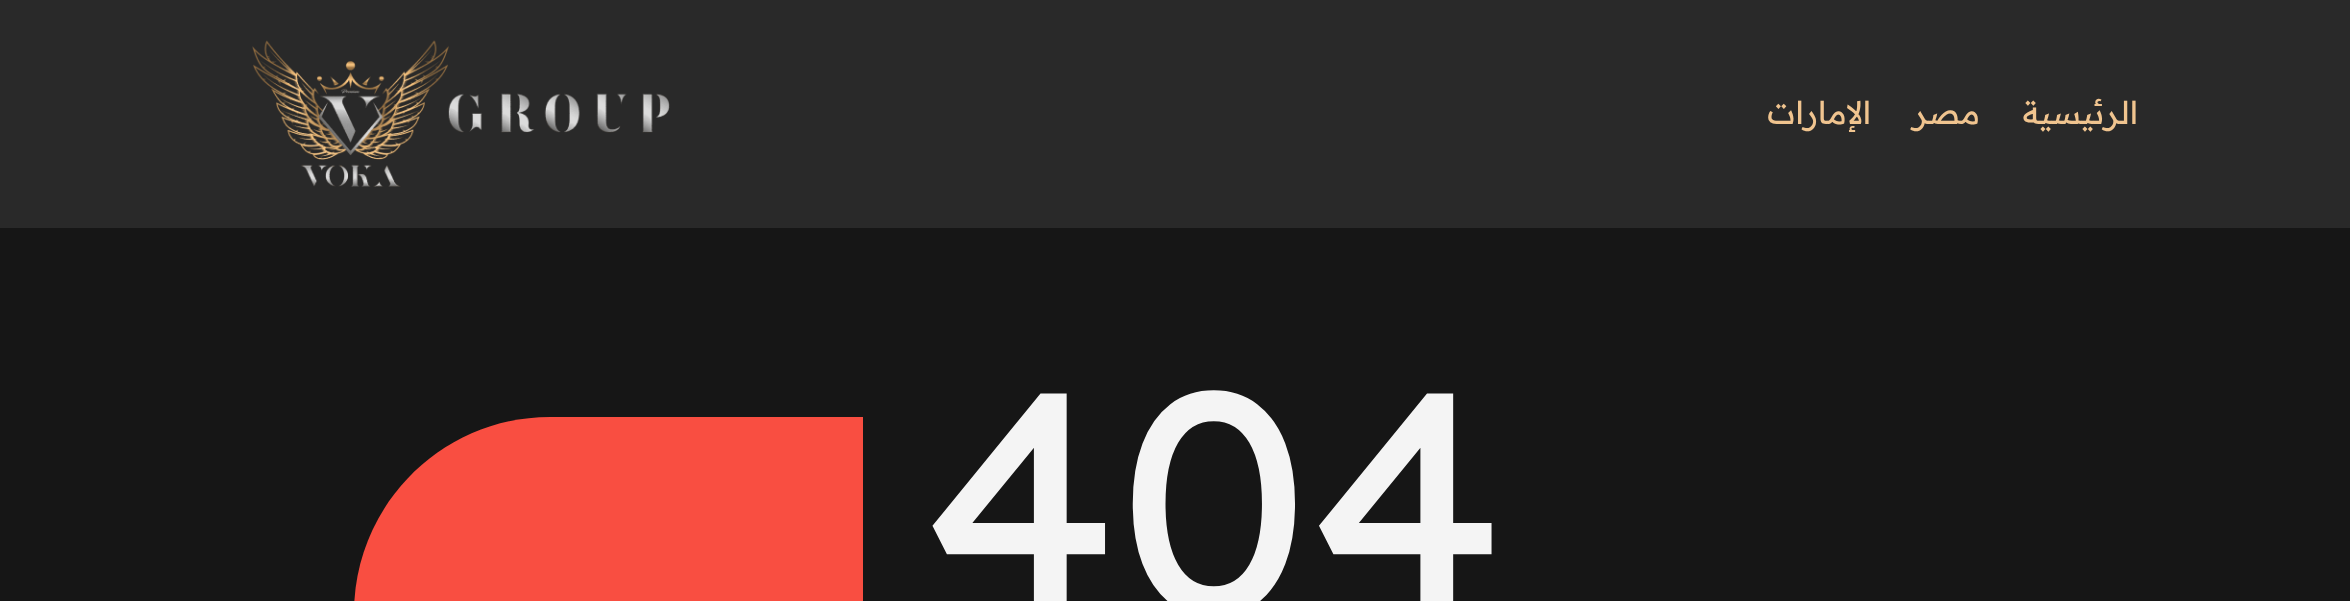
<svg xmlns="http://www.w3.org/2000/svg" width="2350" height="601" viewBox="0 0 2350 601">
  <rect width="100%" height="100%" fill="rgb(22,22,22)"/>
  <rect x="0" y="0" width="2350" height="228" fill="rgb(41,41,41)"/>
  <g font-family="Readex Pro" font-size="31.5" direction="rtl" fill="rgb(240,196,143)">
    <text x="2138" y="124">الرئيسية</text>
    <text x="1980" y="124">مصر</text>
    <text x="1871" y="124">الإمارات</text>
  </g>
  <image x="252" y="40" width="418" height="147" href="pic1.png"/>
  <text x="923" y="614" font-family="Readex Pro" font-size="315" fill="rgb(244,244,244)">404</text>
  <path d="M550 417H863V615C863 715.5 781.5 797 681 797H354V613C354 505 442 417 550 417Z" fill="rgb(249,78,65)"/>
</svg>
